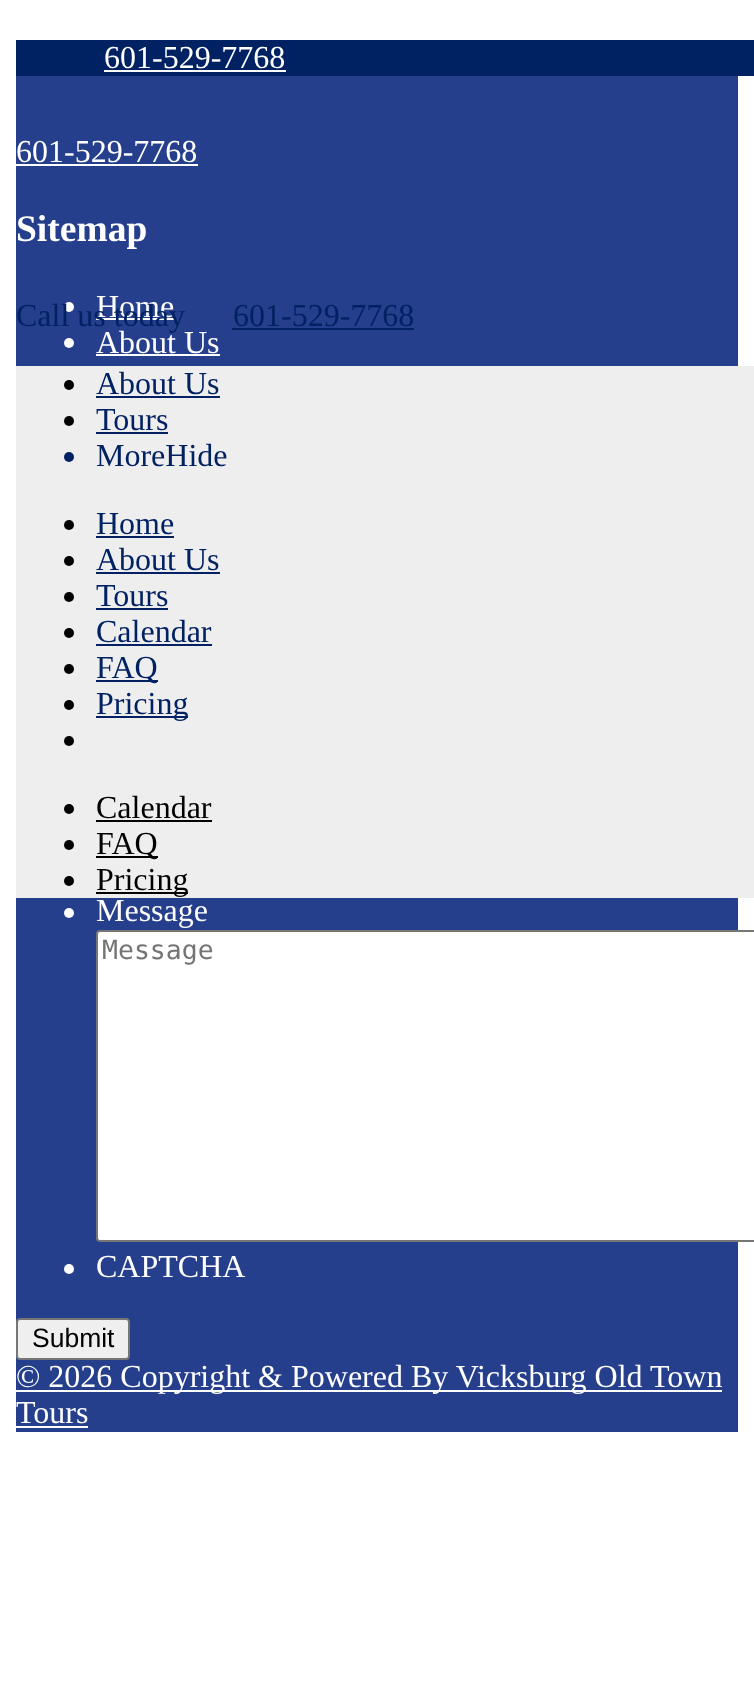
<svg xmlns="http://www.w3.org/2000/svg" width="754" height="1707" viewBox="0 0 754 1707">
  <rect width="100%" height="100%" fill="rgb(255,255,255)"/>
  <rect x="16" y="40" width="738" height="36" fill="rgb(0,34,99)"/>
  <text x="104" y="68" font-family="Liberation Serif" font-size="32" fill="rgb(255,255,255)">601-529-7768</text>
  <rect x="104" y="70" width="182" height="2" fill="rgb(255,255,255)"/>
  <rect x="16" y="76" width="722" height="1356" fill="rgb(37,63,140)"/>
  <circle cx="69" cy="307" r="5" fill="rgb(255,255,255)"/>
  <text x="96" y="317" font-family="Liberation Serif" font-size="32" fill="rgb(255,255,255)">Home</text>
  <rect x="96" y="318" width="78" height="2" fill="rgb(255,255,255)"/>
  <g font-family="Liberation Serif" font-size="32" fill="rgb(0,34,99)">
    <text x="16" y="326">Call us today</text>
    <text x="233" y="326">601-529-7768</text>
  </g>
  <rect x="232" y="328" width="182" height="2" fill="rgb(0,34,99)"/>
  <rect x="16" y="366" width="738" height="532" fill="rgb(238,238,238)"/>
  <circle cx="69" cy="385" r="5" fill="rgb(0,0,0)"/>
  <text x="96" y="394" font-family="Liberation Serif" font-size="32" fill="rgb(0,34,99)">About Us</text>
  <rect x="96" y="396" width="124" height="2" fill="rgb(0,34,99)"/>
  <circle cx="69" cy="421" r="5" fill="rgb(0,0,0)"/>
  <text x="96" y="430" font-family="Liberation Serif" font-size="32" fill="rgb(0,34,99)">Tours</text>
  <rect x="96" y="432" width="72" height="2" fill="rgb(0,34,99)"/>
  <circle cx="69" cy="457" r="5" fill="rgb(0,34,99)"/>
  <text x="96" y="466" font-family="Liberation Serif" font-size="32" fill="rgb(0,34,99)">MoreHide</text>
  <circle cx="69" cy="525" r="5" fill="rgb(0,0,0)"/>
  <text x="96" y="534" font-family="Liberation Serif" font-size="32" fill="rgb(0,34,99)">Home</text>
  <rect x="96" y="536" width="78" height="2" fill="rgb(0,34,99)"/>
  <circle cx="69" cy="561" r="5" fill="rgb(0,0,0)"/>
  <text x="96" y="570" font-family="Liberation Serif" font-size="32" fill="rgb(0,34,99)">About Us</text>
  <rect x="96" y="572" width="124" height="2" fill="rgb(0,34,99)"/>
  <circle cx="69" cy="597" r="5" fill="rgb(0,0,0)"/>
  <text x="96" y="606" font-family="Liberation Serif" font-size="32" fill="rgb(0,34,99)">Tours</text>
  <rect x="96" y="608" width="72" height="2" fill="rgb(0,34,99)"/>
  <circle cx="69" cy="633" r="5" fill="rgb(0,0,0)"/>
  <text x="96" y="642" font-family="Liberation Serif" font-size="32" fill="rgb(0,34,99)">Calendar</text>
  <rect x="96" y="644" width="116" height="2" fill="rgb(0,34,99)"/>
  <circle cx="69" cy="669" r="5" fill="rgb(0,0,0)"/>
  <rect x="96" y="680" width="62" height="2" fill="rgb(0,34,99)"/>
  <text x="96" y="678" font-family="Liberation Serif" font-size="32" fill="rgb(0,34,99)">FAQ</text>
  <circle cx="69" cy="705" r="5" fill="rgb(0,0,0)"/>
  <rect x="96" y="716" width="92" height="2" fill="rgb(0,34,99)"/>
  <text x="96" y="714" font-family="Liberation Serif" font-size="32" fill="rgb(0,34,99)">Pricing</text>
  <circle cx="69" cy="741" r="5" fill="rgb(0,0,0)"/>
  <circle cx="69" cy="809" r="5" fill="rgb(0,0,0)"/>
  <text x="96" y="818" font-family="Liberation Serif" font-size="32" fill="rgb(0,0,0)">Calendar</text>
  <rect x="96" y="820" width="116" height="2" fill="rgb(0,0,0)"/>
  <circle cx="69" cy="845" r="5" fill="rgb(0,0,0)"/>
  <rect x="96" y="856" width="62" height="2" fill="rgb(0,0,0)"/>
  <text x="96" y="854" font-family="Liberation Serif" font-size="32" fill="rgb(0,0,0)">FAQ</text>
  <circle cx="69" cy="881" r="5" fill="rgb(0,0,0)"/>
  <rect x="96" y="892" width="92" height="2" fill="rgb(0,0,0)"/>
  <text x="96" y="890" font-family="Liberation Serif" font-size="32" fill="rgb(0,0,0)">Pricing</text>
  <text x="16" y="162" font-family="Liberation Serif" font-size="32" fill="rgb(255,255,255)">601-529-7768</text>
  <rect x="16" y="164" width="182" height="2" fill="rgb(255,255,255)"/>
  <text x="16" y="241" font-family="Liberation Serif" font-size="37.5" font-weight="bold" fill="rgb(255,255,255)">Sitemap</text>
  <circle cx="69" cy="343" r="5" fill="rgb(255,255,255)"/>
  <text x="96" y="353" font-family="Liberation Serif" font-size="32" fill="rgb(255,255,255)">About Us</text>
  <rect x="96" y="354" width="124" height="2" fill="rgb(255,255,255)"/>
  <circle cx="69" cy="913" r="5" fill="rgb(255,255,255)"/>
  <text x="96" y="921" font-family="Liberation Serif" font-size="32" fill="rgb(255,255,255)">Message</text>
  <rect x="97" y="931" width="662" height="310" rx="3" fill="rgb(255,255,255)" stroke="rgb(118,118,118)" stroke-width="2"/>
  <text x="102" y="959" font-family="DejaVu Sans Mono" font-size="26.5" fill="rgb(117,117,117)">Message</text>
  <circle cx="69" cy="1269" r="5" fill="rgb(255,255,255)"/>
  <text x="96" y="1277" font-family="Liberation Serif" font-size="32" fill="rgb(255,255,255)">CAPTCHA</text>
  <rect x="17" y="1319" width="112" height="40" rx="3" fill="rgb(239,239,239)" stroke="rgb(118,118,118)" stroke-width="2"/>
  <text x="32" y="1347" font-family="Liberation Sans" font-size="26.5" fill="rgb(0,0,0)">Submit</text>
  <rect x="16" y="1390" width="706" height="2" fill="rgb(255,255,255)"/>
  <g font-family="Liberation Serif" font-size="32" fill="rgb(255,255,255)">
    <text>
      <tspan x="16" y="1387">© 2026 Copyright &amp; Powered By Vicksburg Old Town</tspan>
      <tspan x="16" y="1423">Tours</tspan>
    </text>
  </g>
  <rect x="16" y="1426" width="72" height="2" fill="rgb(255,255,255)"/>
</svg>
